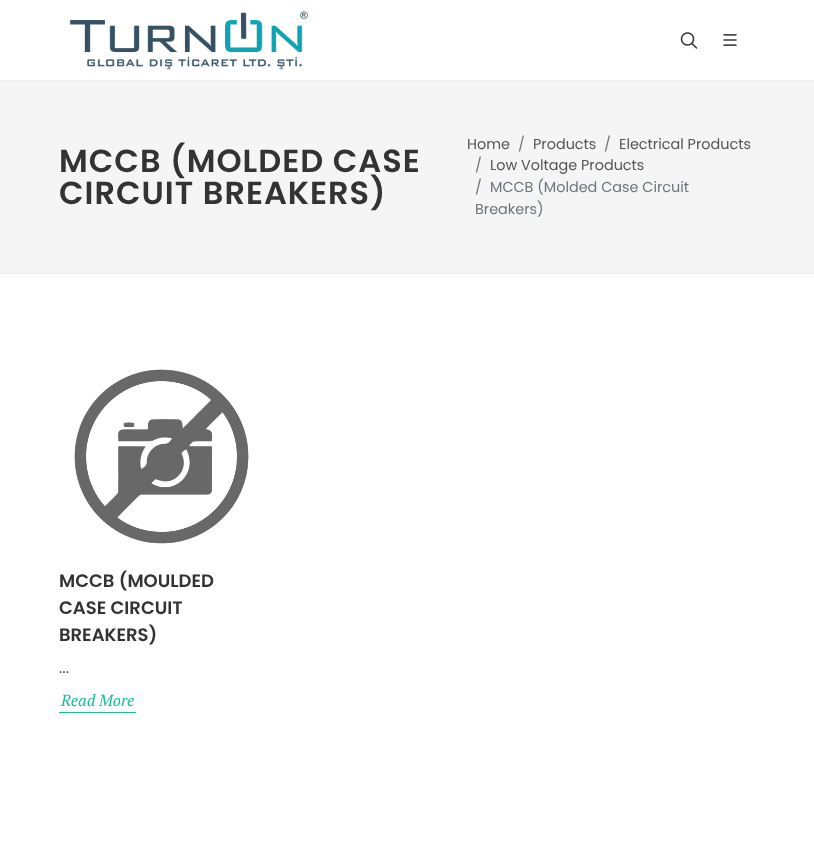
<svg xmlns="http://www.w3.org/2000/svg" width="814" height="847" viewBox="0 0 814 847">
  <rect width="100%" height="100%" fill="rgb(255,255,255)"/>
  <rect x="0" y="80" width="814" height="1" fill="rgb(238,238,238)"/>
  <image x="69" y="11" width="239" height="59" href="pic1.png"/>
  <image x="680" y="32" width="18" height="17" href="pic2.png"/>
  <image x="723" y="34" width="14" height="12" href="pic3.png"/>
  <rect x="0" y="81" width="814" height="192" fill="rgb(245,245,245)"/>
  <rect x="0" y="273" width="814" height="1" fill="rgb(238,238,238)"/>
  <g font-family="Poppins" font-size="32" font-weight="600" letter-spacing="1" fill="rgb(51,51,51)">
    <text>
      <tspan x="59" y="172">MCCB (MOLDED CASE</tspan>
      <tspan x="59" y="204">CIRCUIT BREAKERS)</tspan>
    </text>
  </g>
  <text x="467" y="149" font-family="Poppins" font-size="14.4" fill="rgb(85,85,85)">Home</text>
  <text x="518" y="149" font-family="Poppins" font-size="14.4" fill="rgb(108,117,125)">/</text>
  <text x="533" y="149" font-family="Poppins" font-size="14.4" fill="rgb(85,85,85)">Products</text>
  <text x="604" y="149" font-family="Poppins" font-size="14.4" fill="rgb(108,117,125)">/</text>
  <text x="619" y="149" font-family="Poppins" font-size="14.4" fill="rgb(85,85,85)">Electrical Products</text>
  <text x="475" y="170" font-family="Poppins" font-size="14.4" fill="rgb(108,117,125)">/</text>
  <text x="490" y="170" font-family="Poppins" font-size="14.4" fill="rgb(85,85,85)">Low Voltage Products</text>
  <g font-family="Poppins" font-size="14.4" fill="rgb(108,117,125)">
    <text x="475" y="192">/</text>
    <text x="490" y="192">MCCB (Molded Case Circuit</text>
    <text x="475" y="214">Breakers)</text>
  </g>
  <image x="74" y="369" width="175" height="175" href="pic4.png"/>
  <g font-family="Poppins" font-size="18" font-weight="600" fill="rgb(51,51,51)">
    <text>
      <tspan x="59" y="587">MCCB (MOULDED</tspan>
      <tspan x="59" y="614">CASE CIRCUIT</tspan>
      <tspan x="59" y="641">BREAKERS)</tspan>
    </text>
  </g>
  <text x="59" y="673" font-family="Poppins" font-size="16" fill="rgb(85,85,85)">...</text>
  <rect x="59" y="712" width="77" height="1" fill="rgb(26,188,156)"/>
  <text x="61" y="706" font-family="PT Serif" font-size="16" font-style="italic" fill="rgb(26,188,156)">Read More</text>
</svg>
